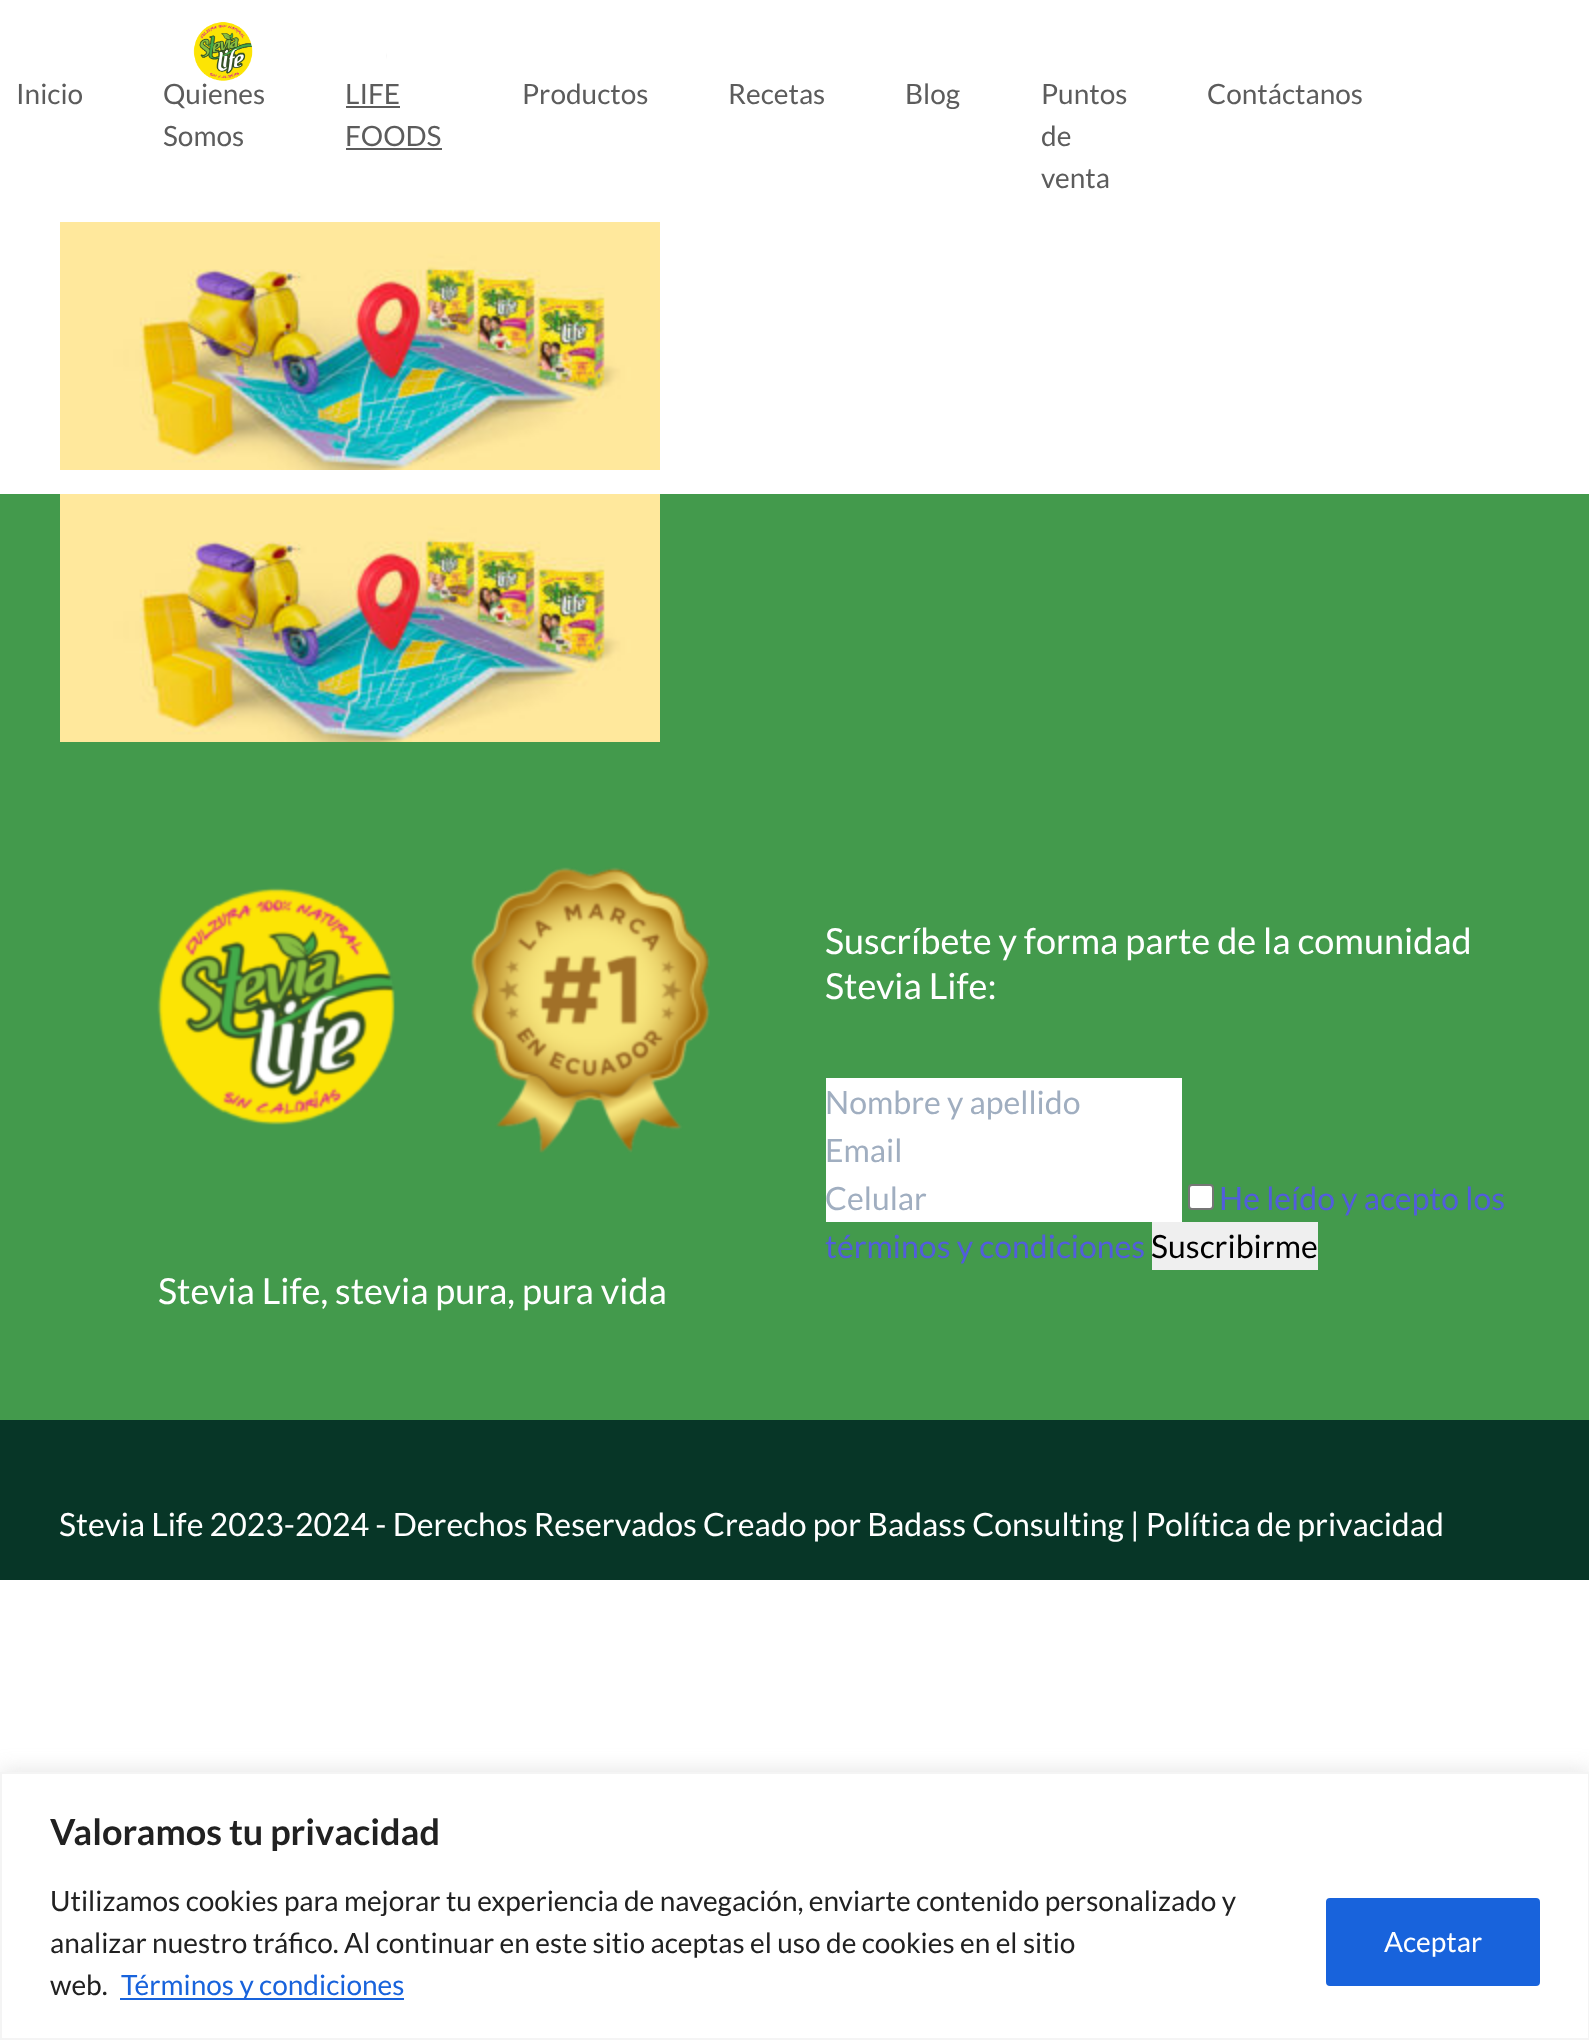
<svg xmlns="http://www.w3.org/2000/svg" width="1589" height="2040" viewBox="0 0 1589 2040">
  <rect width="100%" height="100%" fill="rgb(255,255,255)"/>
  <image x="193" y="22" width="194" height="59" href="pic1.png"/>
  <g font-family="Lato" font-size="28" fill="rgb(92,92,92)">
    <text x="16" y="104">Inicio</text>
    <text>
      <tspan x="163" y="104">Quienes</tspan>
      <tspan x="163" y="146">Somos</tspan>
    </text>
    <text x="345" y="104">LIFE</text>
  </g>
  <rect x="346" y="106" width="54" height="2" fill="rgb(92,92,92)"/>
  <text x="345" y="146" font-family="Lato" font-size="28" fill="rgb(92,92,92)">FOODS</text>
  <rect x="346" y="148" width="96" height="2" fill="rgb(92,92,92)"/>
  <g font-family="Lato" font-size="28" fill="rgb(92,92,92)">
    <text x="522" y="104">Productos</text>
    <text x="728" y="104">Recetas</text>
    <text x="905" y="104">Blog</text>
    <text>
      <tspan x="1041" y="104">Puntos</tspan>
      <tspan x="1041" y="146">de</tspan>
      <tspan x="1041" y="188">venta</tspan>
    </text>
    <text x="1207" y="104">Contáctanos</text>
  </g>
  <image x="60" y="222" width="600" height="248" href="pic2.png"/>
  <rect x="0" y="494" width="1589" height="926" fill="rgb(67,154,76)"/>
  <image x="60" y="494" width="600" height="248" href="pic2.png"/>
  <g font-family="Lato" font-size="36" fill="rgb(255,255,255)">
    <text>
      <tspan x="825" y="954">Suscríbete y forma parte de la comunidad</tspan>
      <tspan x="825" y="999">Stevia Life:</tspan>
    </text>
  </g>
  <rect x="826" y="1078" width="356" height="144" fill="rgb(255,255,255)"/>
  <g font-family="Lato" font-size="32" fill="rgb(160,174,192)">
    <text>
      <tspan x="825" y="1114">Nombre y apellido</tspan>
      <tspan x="825" y="1162">Email</tspan>
    </text>
  </g>
  <rect x="1189" y="1185" width="24" height="24" rx="3" fill="rgb(255,255,255)" stroke="rgb(118,118,118)" stroke-width="2"/>
  <g font-family="Lato" font-size="32" fill="rgb(82,93,220)">
    <text x="1219" y="1210">He leído y acepto los</text>
    <text x="825" y="1258">términos y condiciones</text>
  </g>
  <text x="825" y="1210" font-family="Lato" font-size="32" fill="rgb(160,174,192)">Celular</text>
  <rect x="1152" y="1222" width="166" height="48" fill="rgb(239,239,239)"/>
  <text x="1151" y="1258" font-family="Lato" font-size="32" fill="rgb(0,0,0)">Suscribirme</text>
  <image x="157" y="867" width="553" height="286" href="pic3.png"/>
  <text x="158" y="1304" font-family="Lato" font-size="36" fill="rgb(255,255,255)">Stevia Life, stevia pura, pura vida</text>
  <rect x="0" y="1420" width="1589" height="160" fill="rgb(7,54,39)"/>
  <text x="59" y="1536" font-family="Lato" font-size="32" fill="rgb(255,255,255)">Stevia Life 2023-2024 - Derechos Reservados Creado por Badass Consulting | Política de privacidad</text>
  <rect x="0" y="1770" width="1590" height="268" fill="rgba(172,171,171,0.3)" filter="blur(10px)"/>
  <rect x="1" y="1773" width="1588" height="266" fill="rgb(255,255,255)" stroke="rgb(244,244,244)" stroke-width="2"/>
  <text x="50" y="1845" font-family="Lato" font-size="36" font-weight="bold" fill="rgb(33,33,33)">Valoramos tu privacidad</text>
  <g font-family="Lato" font-size="28" fill="rgb(33,33,33)">
    <text>
      <tspan x="50" y="1911">Utilizamos cookies para mejorar tu experiencia de navegación, enviarte contenido personalizado y</tspan>
      <tspan x="50" y="1953">analizar nuestro tráfico. Al continuar en este sitio aceptas el uso de cookies en el sitio</tspan>
      <tspan x="50" y="1995">web.</tspan>
    </text>
  </g>
  <rect x="120" y="1998" width="284" height="2" fill="rgb(24,99,220)"/>
  <text x="121" y="1995" font-family="Lato" font-size="28" fill="rgb(24,99,220)">Términos y condiciones</text>
  <rect x="1328" y="1900" width="210" height="84" rx="2" fill="rgb(24,99,220)" stroke="rgb(24,99,220)" stroke-width="4"/>
  <text x="1384" y="1952" font-family="Lato" font-size="28" fill="rgb(255,255,255)">Aceptar</text>
</svg>
